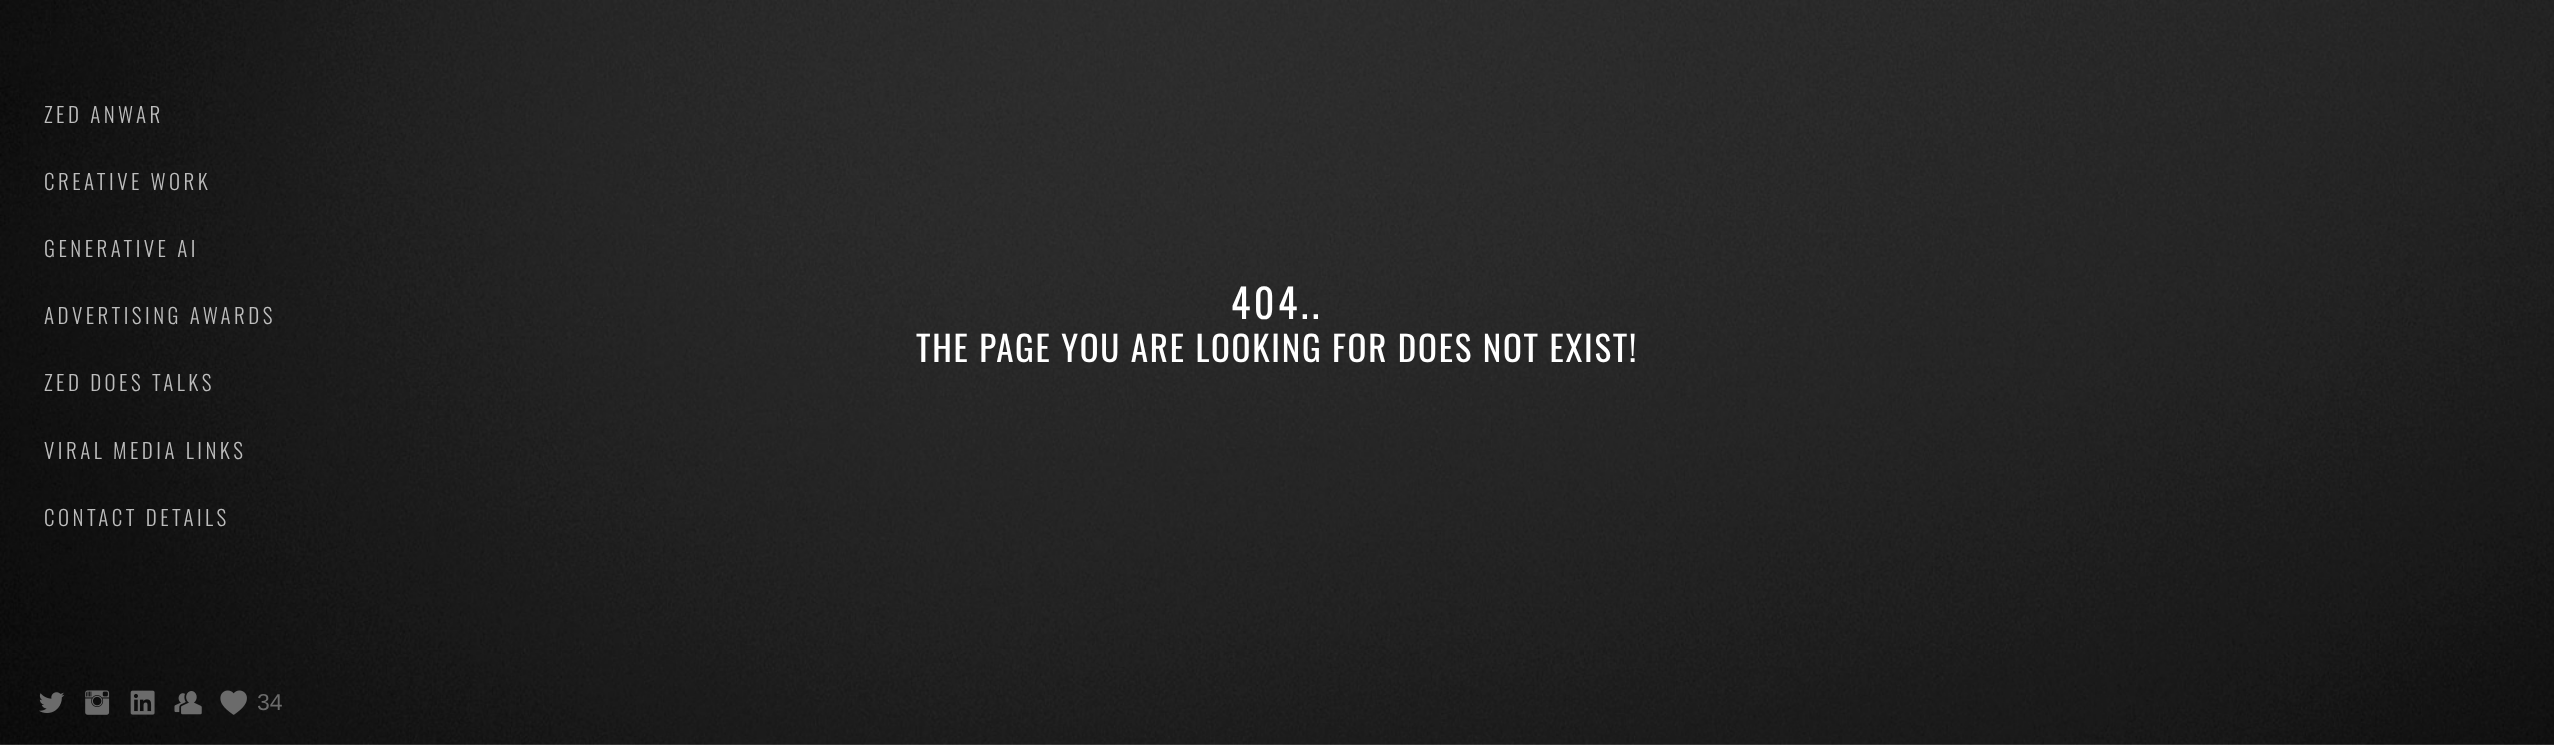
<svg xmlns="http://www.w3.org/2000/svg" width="2554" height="745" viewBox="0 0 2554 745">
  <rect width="100%" height="100%" fill="rgb(255,255,255)"/>
  <image x="0" y="0" width="2554" height="745" href="pic1.png"/>
  <g font-family="Oswald" font-size="21" font-weight="300" letter-spacing="3.5" fill="rgb(189,189,189)">
    <text x="44" y="123">ZED ANWAR</text>
    <text x="44" y="190">CREATIVE WORK</text>
    <text x="44" y="257">GENERATIVE AI</text>
    <text x="44" y="324">ADVERTISING AWARDS</text>
    <text x="44" y="391">ZED DOES TALKS</text>
    <text x="44" y="459">VIRAL MEDIA LINKS</text>
    <text x="44" y="526">CONTACT DETAILS</text>
  </g>
  <text x="1231" y="319" font-family="Oswald" font-size="40" letter-spacing="3.5" fill="rgb(255,255,255)">404..</text>
  <text x="916" y="362" font-family="Oswald" font-size="35" letter-spacing="1.75" fill="rgb(255,255,255)">THE PAGE YOU ARE LOOKING FOR DOES NOT EXIST!</text>
  <image x="39" y="692" width="26" height="21" href="pic2.png"/>
  <image x="85" y="690" width="25" height="25" href="pic3.png"/>
  <image x="130" y="690" width="25" height="25" href="pic4.png"/>
  <image x="174" y="691" width="28" height="24" href="pic5.png"/>
  <image x="220" y="690" width="27" height="25" href="pic6.png"/>
  <text x="257" y="710" font-family="Liberation Sans" font-size="23" fill="rgb(107,107,107)">34</text>
</svg>
